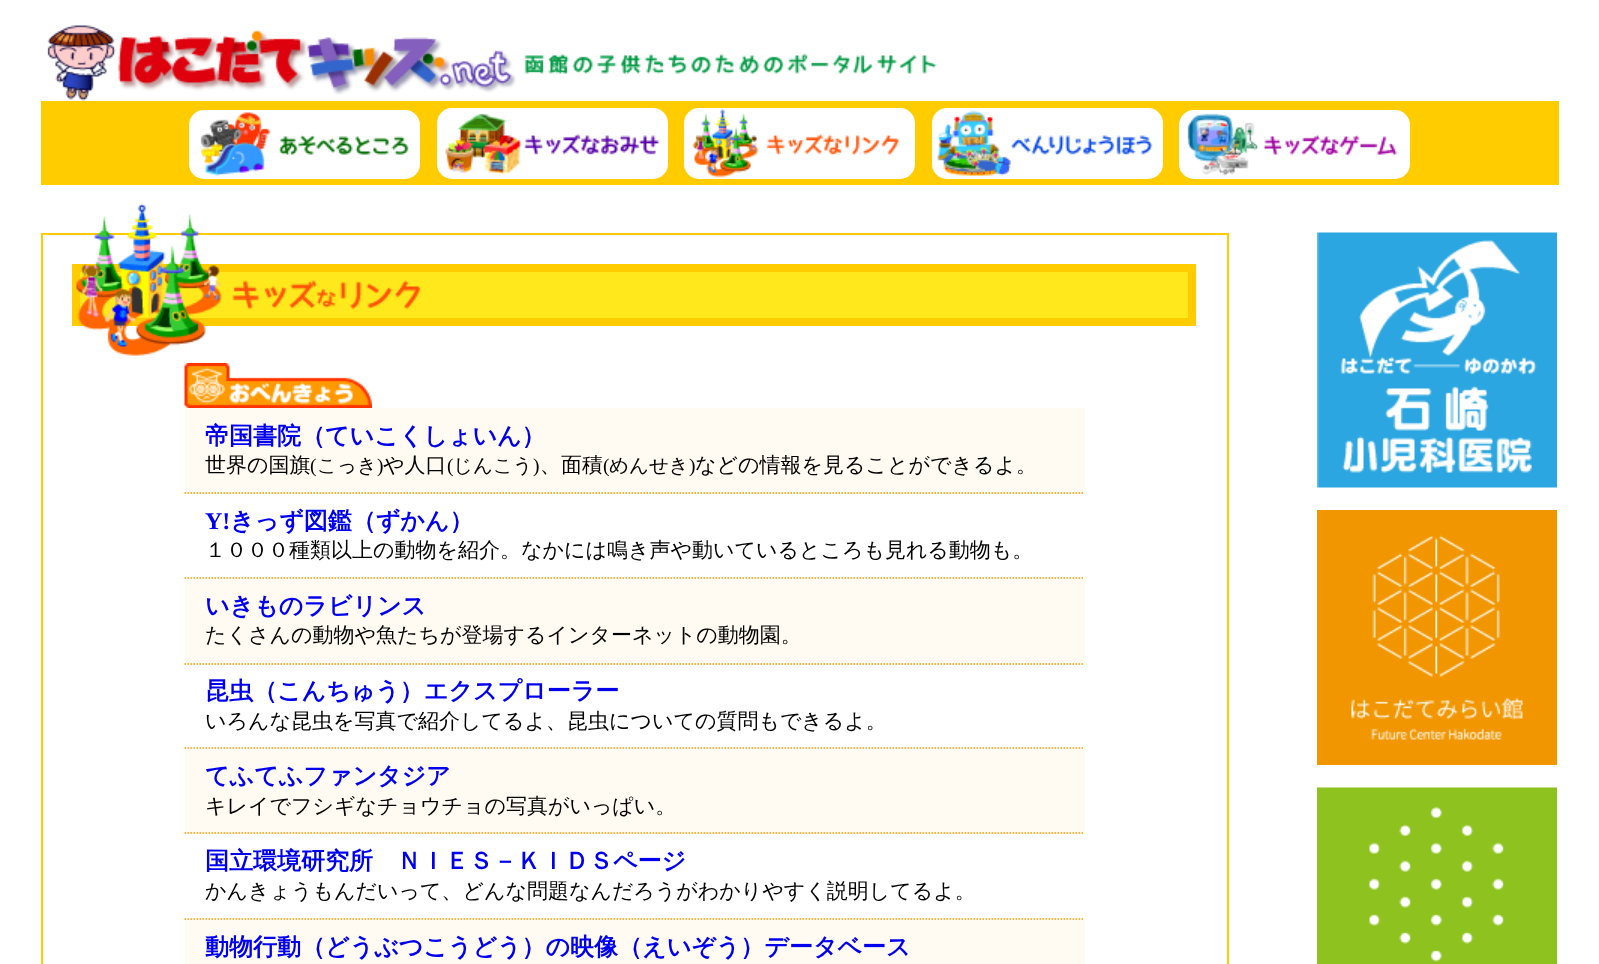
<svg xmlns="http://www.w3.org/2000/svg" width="1599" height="964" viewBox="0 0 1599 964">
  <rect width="100%" height="100%" fill="rgb(255,255,255)"/>
  <image x="47" y="25" width="469" height="76" href="pic1.png"/>
  <image x="524" y="53" width="413" height="21" href="pic2.png"/>
  <rect x="41" y="101" width="1518" height="84" fill="rgb(255,204,0)"/>
  <rect x="189" y="110" width="231" height="69" rx="15" fill="rgb(255,255,255)"/>
  <image x="200" y="112" width="209" height="64" href="pic3.png"/>
  <rect x="437" y="108" width="231" height="71" rx="15" fill="rgb(255,255,255)"/>
  <image x="445" y="113" width="214" height="62" href="pic4.png"/>
  <rect x="684" y="108" width="231" height="71" rx="15" fill="rgb(255,255,255)"/>
  <image x="692" y="109" width="207" height="69" href="pic5.png"/>
  <rect x="932" y="108" width="231" height="71" rx="15" fill="rgb(255,255,255)"/>
  <image x="937" y="110" width="216" height="66" href="pic6.png"/>
  <rect x="1179" y="110" width="231" height="69" rx="15" fill="rgb(255,255,255)"/>
  <image x="1187" y="113" width="210" height="63" href="pic7.png"/>
  <rect x="42" y="234" width="1186" height="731" fill="none" stroke="rgb(255,204,0)" stroke-width="2"/>
  <rect x="76" y="268" width="1116" height="54" fill="rgb(255,233,29)" stroke="rgb(255,204,0)" stroke-width="8"/>
  <image x="76" y="204" width="147" height="152" href="pic8.png"/>
  <image x="232" y="280" width="189" height="30" href="pic9.png"/>
  <image x="184" y="363" width="188" height="45" href="pic10.png"/>
  <rect x="185" y="408" width="900" height="86" fill="rgb(255,250,242)"/>
  <path d="M184.5 493H1084.5" fill="none" stroke="rgb(255,153,0)" stroke-width="1.5" stroke-dasharray="1.5 1.5"/>
  <text x="205" y="444" font-family="WenQuanYi Zen Hei" font-size="24" font-weight="bold" fill="rgb(0,0,238)">帝国書院（ていこくしょいん）</text>
  <text x="205" y="472" font-family="WenQuanYi Zen Hei" font-size="21" font-weight="500" fill="rgb(0,0,0)">世界の国旗</text>
  <text x="310" y="472" font-family="Liberation Serif" font-size="19.5" fill="rgb(0,0,0)">(</text>
  <text x="317" y="472" font-family="WenQuanYi Zen Hei" font-size="19.5" font-weight="500" fill="rgb(0,0,0)">こっき</text>
  <text x="377" y="472" font-family="Liberation Serif" font-size="19.5" fill="rgb(0,0,0)">)</text>
  <text x="383" y="472" font-family="WenQuanYi Zen Hei" font-size="21" font-weight="500" fill="rgb(0,0,0)">や人口</text>
  <text x="447" y="472" font-family="Liberation Serif" font-size="19.5" fill="rgb(0,0,0)">(</text>
  <text x="453" y="472" font-family="WenQuanYi Zen Hei" font-size="19.5" font-weight="500" fill="rgb(0,0,0)">じんこう</text>
  <text x="533" y="472" font-family="Liberation Serif" font-size="19.5" fill="rgb(0,0,0)">)</text>
  <text x="540" y="472" font-family="WenQuanYi Zen Hei" font-size="21" font-weight="500" fill="rgb(0,0,0)">、面積</text>
  <text x="603" y="472" font-family="Liberation Serif" font-size="19.5" fill="rgb(0,0,0)">(</text>
  <text x="609" y="472" font-family="WenQuanYi Zen Hei" font-size="19.5" font-weight="500" fill="rgb(0,0,0)">めんせき</text>
  <text x="689" y="472" font-family="Liberation Serif" font-size="19.5" fill="rgb(0,0,0)">)</text>
  <text x="695" y="472" font-family="WenQuanYi Zen Hei" font-size="21" font-weight="500" fill="rgb(0,0,0)">などの情報を見ることができるよ。</text>
  <path d="M184.5 578H1084.5" fill="none" stroke="rgb(255,153,0)" stroke-width="1.5" stroke-dasharray="1.5 1.5"/>
  <text x="205" y="529" font-family="Liberation Serif" font-size="24" font-weight="bold" fill="rgb(0,0,238)">Y!</text>
  <text x="230" y="529" font-family="WenQuanYi Zen Hei" font-size="24" font-weight="bold" fill="rgb(0,0,238)">きっず図鑑（ずかん）</text>
  <text x="205" y="557" font-family="WenQuanYi Zen Hei" font-size="21" font-weight="500" fill="rgb(0,0,0)">１０００種類以上の動物を紹介。なかには鳴き声や動いているところも見れる動物も。</text>
  <rect x="185" y="579" width="900" height="86" fill="rgb(255,250,242)"/>
  <path d="M184.5 664H1084.5" fill="none" stroke="rgb(255,153,0)" stroke-width="1.5" stroke-dasharray="1.5 1.5"/>
  <text x="205" y="614" font-family="WenQuanYi Zen Hei" font-size="24" font-weight="bold" fill="rgb(0,0,238)">いきものラビリンス</text>
  <text x="205" y="642" font-family="WenQuanYi Zen Hei" font-size="21" font-weight="500" fill="rgb(0,0,0)">たくさんの動物や魚たちが登場するインターネットの動物園。</text>
  <path d="M184.5 748H1084.5" fill="none" stroke="rgb(255,153,0)" stroke-width="1.5" stroke-dasharray="1.5 1.5"/>
  <text x="205" y="699" font-family="WenQuanYi Zen Hei" font-size="24" font-weight="bold" fill="rgb(0,0,238)">昆虫（こんちゅう）エクスプローラー</text>
  <text x="205" y="728" font-family="WenQuanYi Zen Hei" font-size="21" font-weight="500" fill="rgb(0,0,0)">いろんな昆虫を写真で紹介してるよ、昆虫についての質問もできるよ。</text>
  <rect x="185" y="749" width="900" height="85" fill="rgb(255,250,242)"/>
  <path d="M184.5 833H1084.5" fill="none" stroke="rgb(255,153,0)" stroke-width="1.5" stroke-dasharray="1.5 1.5"/>
  <text x="205" y="784" font-family="WenQuanYi Zen Hei" font-size="24" font-weight="bold" fill="rgb(0,0,238)">てふてふファンタジア</text>
  <text x="205" y="813" font-family="WenQuanYi Zen Hei" font-size="21" font-weight="500" fill="rgb(0,0,0)">キレイでフシギなチョウチョの写真がいっぱい。</text>
  <path d="M184.5 919H1084.5" fill="none" stroke="rgb(255,153,0)" stroke-width="1.5" stroke-dasharray="1.5 1.5"/>
  <text x="205" y="869" font-family="WenQuanYi Zen Hei" font-size="24" font-weight="bold" fill="rgb(0,0,238)">国立環境研究所　ＮＩＥＳ－ＫＩＤＳページ</text>
  <text x="205" y="898" font-family="WenQuanYi Zen Hei" font-size="21" font-weight="500" fill="rgb(0,0,0)">かんきょうもんだいって、どんな問題なんだろうがわかりやすく説明してるよ。</text>
  <rect x="185" y="920" width="900" height="44" fill="rgb(255,250,242)"/>
  <text x="205" y="955" font-family="WenQuanYi Zen Hei" font-size="24" font-weight="bold" fill="rgb(0,0,238)">動物行動（どうぶつこうどう）の映像（えいぞう）データベース</text>
  <image x="1317" y="232" width="240" height="256" href="pic11.png"/>
  <image x="1317" y="510" width="240" height="255" href="pic12.png"/>
  <image x="1317" y="787" width="240" height="177" href="pic13.png"/>
</svg>
